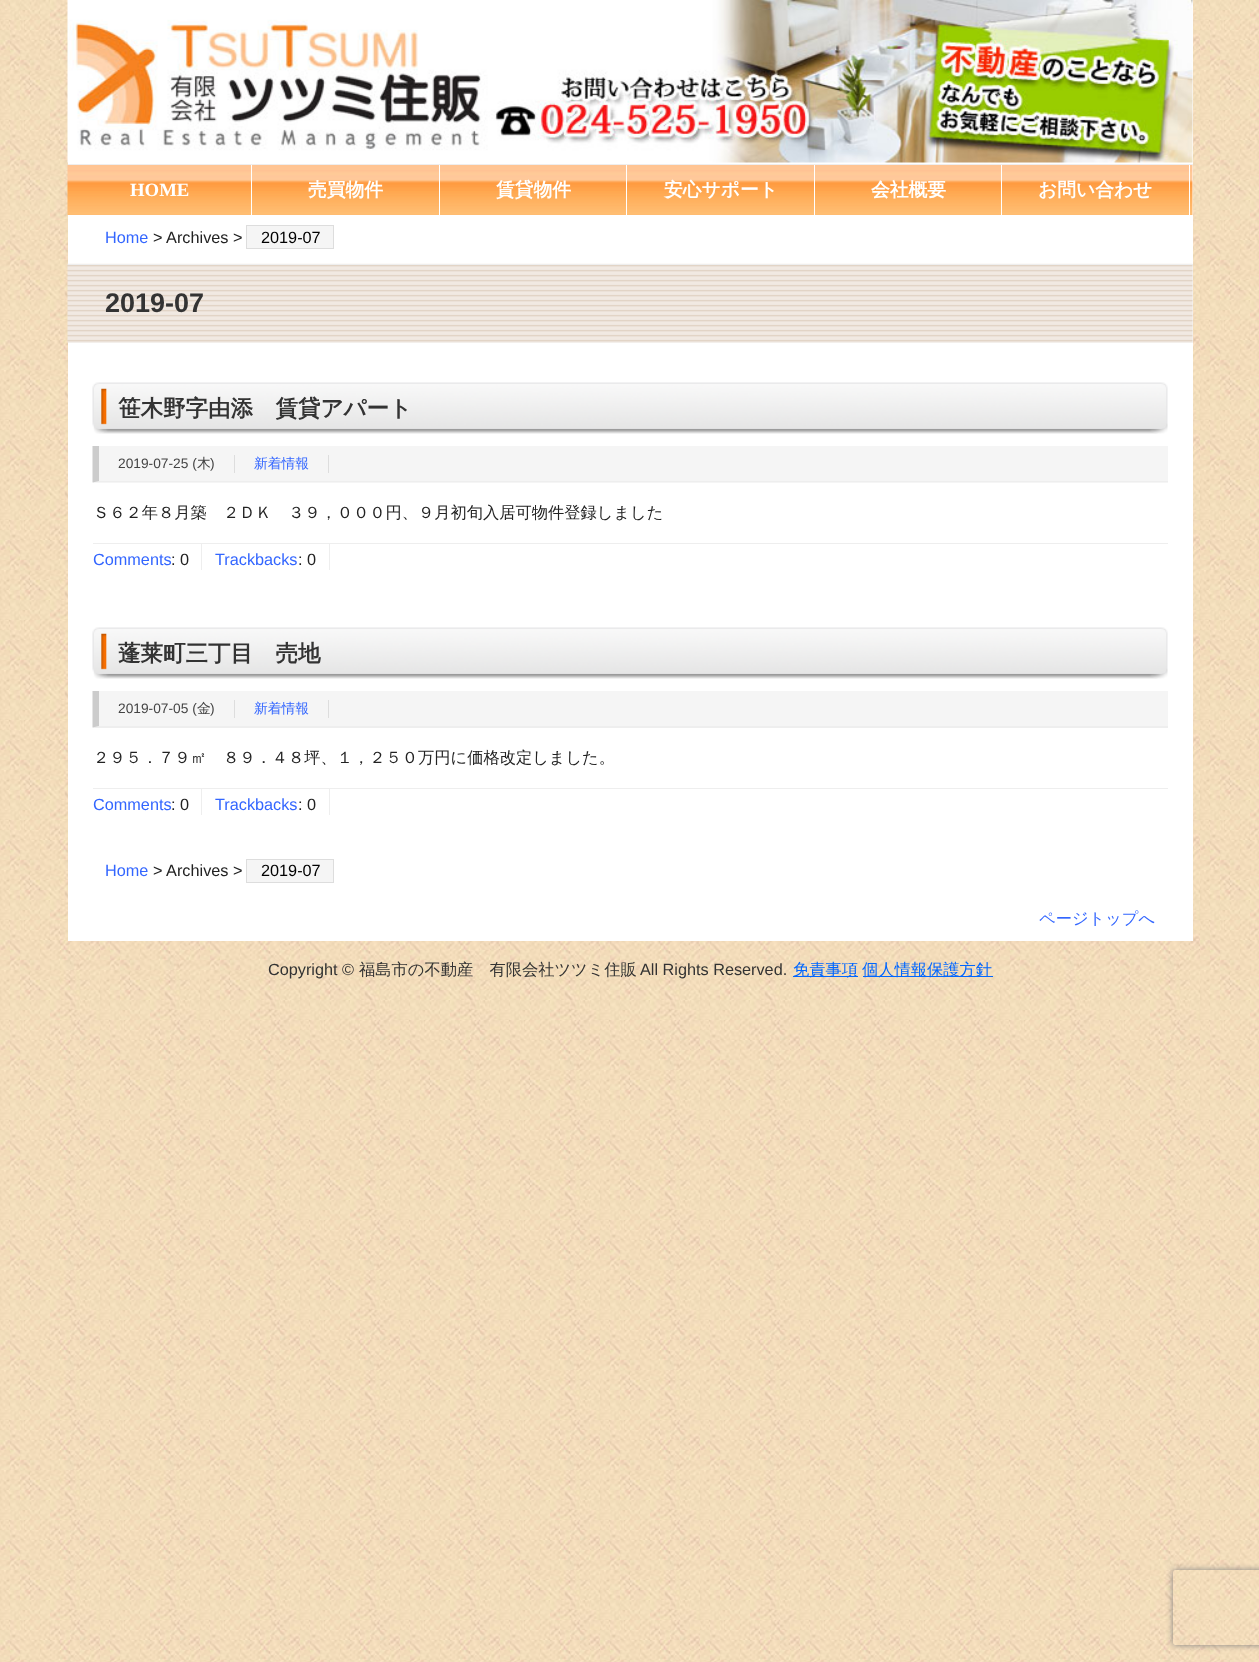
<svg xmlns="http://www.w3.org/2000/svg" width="1259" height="1662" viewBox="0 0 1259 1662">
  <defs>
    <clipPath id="clip1"><path d="M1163 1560H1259V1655H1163ZM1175.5 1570H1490.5C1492 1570 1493 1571 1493 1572.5V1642.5C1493 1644 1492 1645 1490.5 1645H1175.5C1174 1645 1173 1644 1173 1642.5V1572.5C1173 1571 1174 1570 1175.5 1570Z" clip-rule="evenodd"/></clipPath>
  </defs>
  <rect width="100%" height="100%" fill="rgb(255,255,255)"/>
  <image x="0" y="0" width="1259" height="1662" href="pic1.png"/>
  <rect x="68" y="0" width="1125" height="164" fill="rgb(255,255,255)"/>
  <image x="67" y="0" width="1126" height="163" href="pic2.png"/>
  <rect x="68" y="165" width="1125" height="776" fill="rgb(255,255,255)"/>
  <rect x="68" y="164" width="1125" height="1" fill="rgb(238,238,238)"/>
  <image x="67" y="165" width="1126" height="50" href="pic3.png"/>
  <rect x="251" y="165" width="1" height="50" fill="rgb(255,255,255)"/>
  <text x="130" y="196" font-family="Liberation Serif" font-size="18.75" font-weight="bold" fill="rgb(255,255,255)">HOME</text>
  <rect x="439" y="165" width="1" height="50" fill="rgb(255,255,255)"/>
  <text x="308" y="196" font-family="WenQuanYi Zen Hei" font-size="18.75" font-weight="bold" fill="rgb(255,255,255)">売買物件</text>
  <rect x="626" y="165" width="1" height="50" fill="rgb(255,255,255)"/>
  <text x="496" y="196" font-family="WenQuanYi Zen Hei" font-size="18.75" font-weight="bold" fill="rgb(255,255,255)">賃貸物件</text>
  <rect x="814" y="165" width="1" height="50" fill="rgb(255,255,255)"/>
  <text x="664" y="196" font-family="WenQuanYi Zen Hei" font-size="18.75" font-weight="bold" fill="rgb(255,255,255)">安心サポート</text>
  <rect x="1001" y="165" width="1" height="50" fill="rgb(255,255,255)"/>
  <text x="871" y="196" font-family="WenQuanYi Zen Hei" font-size="18.75" font-weight="bold" fill="rgb(255,255,255)">会社概要</text>
  <rect x="1189" y="165" width="1" height="50" fill="rgb(255,255,255)"/>
  <text x="1038" y="196" font-family="WenQuanYi Zen Hei" font-size="18.75" font-weight="bold" fill="rgb(255,255,255)">お問い合わせ</text>
  <text x="105" y="243" font-family="Liberation Sans" font-size="16.25" fill="rgb(51,102,255)">Home</text>
  <text x="153" y="243" font-family="Liberation Sans" font-size="16.25" fill="rgb(34,34,34)">&gt; Archives &gt;</text>
  <rect x="246.5" y="225.5" width="87" height="23" fill="rgb(245,245,245)" stroke="rgb(221,221,221)"/>
  <text x="261" y="243" font-family="Liberation Sans" font-size="16.25" fill="rgb(0,0,0)">2019-07</text>
  <rect x="68" y="265" width="1125" height="78" fill="rgb(245,245,245)"/>
  <image x="67" y="263" width="1126" height="80" href="pic4.png"/>
  <rect x="68" y="264" width="1125" height="1" fill="rgb(238,238,238)"/>
  <text x="105" y="312" font-family="Liberation Sans" font-size="27" font-weight="bold" fill="rgb(51,51,51)">2019-07</text>
  <image x="92" y="382" width="1076" height="52" href="pic5.png"/>
  <text x="118" y="416" font-family="WenQuanYi Zen Hei" font-size="22.5" font-weight="bold" fill="rgb(51,51,51)">笹木野字由添　賃貸アパート</text>
  <rect x="93" y="446" width="1075" height="37" fill="rgb(245,245,245)"/>
  <path d="M1168 482H92L99 481H1168Z" fill="rgb(238,238,238)"/>
  <path d="M92.5 482.5V446H99V481Z" fill="rgb(204,204,204)"/>
  <rect x="234" y="455" width="1" height="18" fill="rgb(221,221,221)"/>
  <text x="118" y="468" font-family="Liberation Sans" font-size="13.75" fill="rgb(68,68,68)">2019-07-25 (</text>
  <text x="197" y="468" font-family="WenQuanYi Zen Hei" font-size="13.75" font-weight="500" fill="rgb(68,68,68)">木</text>
  <text x="210" y="468" font-family="Liberation Sans" font-size="13.75" fill="rgb(68,68,68)">)</text>
  <rect x="328" y="455" width="1" height="18" fill="rgb(221,221,221)"/>
  <text x="254" y="468" font-family="WenQuanYi Zen Hei" font-size="13.75" font-weight="500" fill="rgb(51,102,255)">新着情報</text>
  <text x="93" y="518" font-family="WenQuanYi Zen Hei" font-size="16.25" font-weight="500" fill="rgb(34,34,34)">Ｓ６２年８月築　２ＤＫ　３９，０００円、９月初旬入居可物件登録しました</text>
  <rect x="93" y="543" width="1075" height="1" fill="rgb(238,238,238)"/>
  <rect x="201" y="544" width="1" height="26" fill="rgb(238,238,238)"/>
  <text x="93" y="565" font-family="Liberation Sans" font-size="16.25" fill="rgb(51,102,255)">Comments</text>
  <text x="171" y="565" font-family="Liberation Sans" font-size="16.25" fill="rgb(34,34,34)">: 0</text>
  <rect x="329" y="544" width="1" height="26" fill="rgb(238,238,238)"/>
  <text x="215" y="565" font-family="Liberation Sans" font-size="16.25" fill="rgb(51,102,255)">Trackbacks</text>
  <text x="298" y="565" font-family="Liberation Sans" font-size="16.25" fill="rgb(34,34,34)">: 0</text>
  <image x="92" y="627" width="1076" height="52" href="pic5.png"/>
  <text x="118" y="661" font-family="WenQuanYi Zen Hei" font-size="22.5" font-weight="bold" fill="rgb(51,51,51)">蓬莱町三丁目　売地</text>
  <rect x="93" y="691" width="1075" height="37" fill="rgb(245,245,245)"/>
  <path d="M1168 728H92L99 726H1168Z" fill="rgb(238,238,238)"/>
  <path d="M92.5 727.5V691H99V726Z" fill="rgb(204,204,204)"/>
  <rect x="234" y="700" width="1" height="18" fill="rgb(221,221,221)"/>
  <text x="118" y="713" font-family="Liberation Sans" font-size="13.75" fill="rgb(68,68,68)">2019-07-05 (</text>
  <text x="197" y="713" font-family="WenQuanYi Zen Hei" font-size="13.75" font-weight="500" fill="rgb(68,68,68)">金</text>
  <text x="210" y="713" font-family="Liberation Sans" font-size="13.75" fill="rgb(68,68,68)">)</text>
  <rect x="328" y="700" width="1" height="18" fill="rgb(221,221,221)"/>
  <text x="254" y="713" font-family="WenQuanYi Zen Hei" font-size="13.75" font-weight="500" fill="rgb(51,102,255)">新着情報</text>
  <text x="93" y="763" font-family="WenQuanYi Zen Hei" font-size="16.25" font-weight="500" fill="rgb(34,34,34)">２９５．７９㎡　８９．４８坪、１，２５０万円に価格改定しました。</text>
  <rect x="93" y="788" width="1075" height="1" fill="rgb(238,238,238)"/>
  <rect x="201" y="789" width="1" height="26" fill="rgb(238,238,238)"/>
  <text x="93" y="810" font-family="Liberation Sans" font-size="16.25" fill="rgb(51,102,255)">Comments</text>
  <text x="171" y="810" font-family="Liberation Sans" font-size="16.25" fill="rgb(34,34,34)">: 0</text>
  <rect x="329" y="789" width="1" height="26" fill="rgb(238,238,238)"/>
  <text x="215" y="810" font-family="Liberation Sans" font-size="16.25" fill="rgb(51,102,255)">Trackbacks</text>
  <text x="298" y="810" font-family="Liberation Sans" font-size="16.25" fill="rgb(34,34,34)">: 0</text>
  <text x="105" y="876" font-family="Liberation Sans" font-size="16.25" fill="rgb(51,102,255)">Home</text>
  <text x="153" y="876" font-family="Liberation Sans" font-size="16.25" fill="rgb(34,34,34)">&gt; Archives &gt;</text>
  <rect x="246.5" y="859.5" width="87" height="23" fill="rgb(245,245,245)" stroke="rgb(221,221,221)"/>
  <text x="261" y="876" font-family="Liberation Sans" font-size="16.25" fill="rgb(0,0,0)">2019-07</text>
  <text x="1039" y="924" font-family="WenQuanYi Zen Hei" font-size="16.25" font-weight="500" fill="rgb(51,102,255)">ページトップへ</text>
  <text x="268" y="975" font-family="Liberation Sans" font-size="16.25" fill="rgb(51,51,51)">Copyright ©</text>
  <text x="359" y="975" font-family="WenQuanYi Zen Hei" font-size="16.25" font-weight="500" fill="rgb(51,51,51)">福島市の不動産　有限会社ツツミ住販</text>
  <text x="640" y="975" font-family="Liberation Sans" font-size="16.25" fill="rgb(51,51,51)">All Rights Reserved.</text>
  <rect x="793" y="976" width="65" height="1" fill="rgb(0,102,255)"/>
  <text x="793" y="975" font-family="WenQuanYi Zen Hei" font-size="16.25" font-weight="500" fill="rgb(0,102,255)">免責事項</text>
  <rect x="863" y="976" width="130" height="1" fill="rgb(0,102,255)"/>
  <text x="862" y="975" font-family="WenQuanYi Zen Hei" font-size="16.25" font-weight="500" fill="rgb(0,102,255)">個人情報保護方針</text>
  <g clip-path="url(#clip1)">
    <rect x="1173" y="1570" width="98" height="75" rx="2.5" fill="rgb(128,128,128)" filter="blur(3px)"/>
  </g>
</svg>
